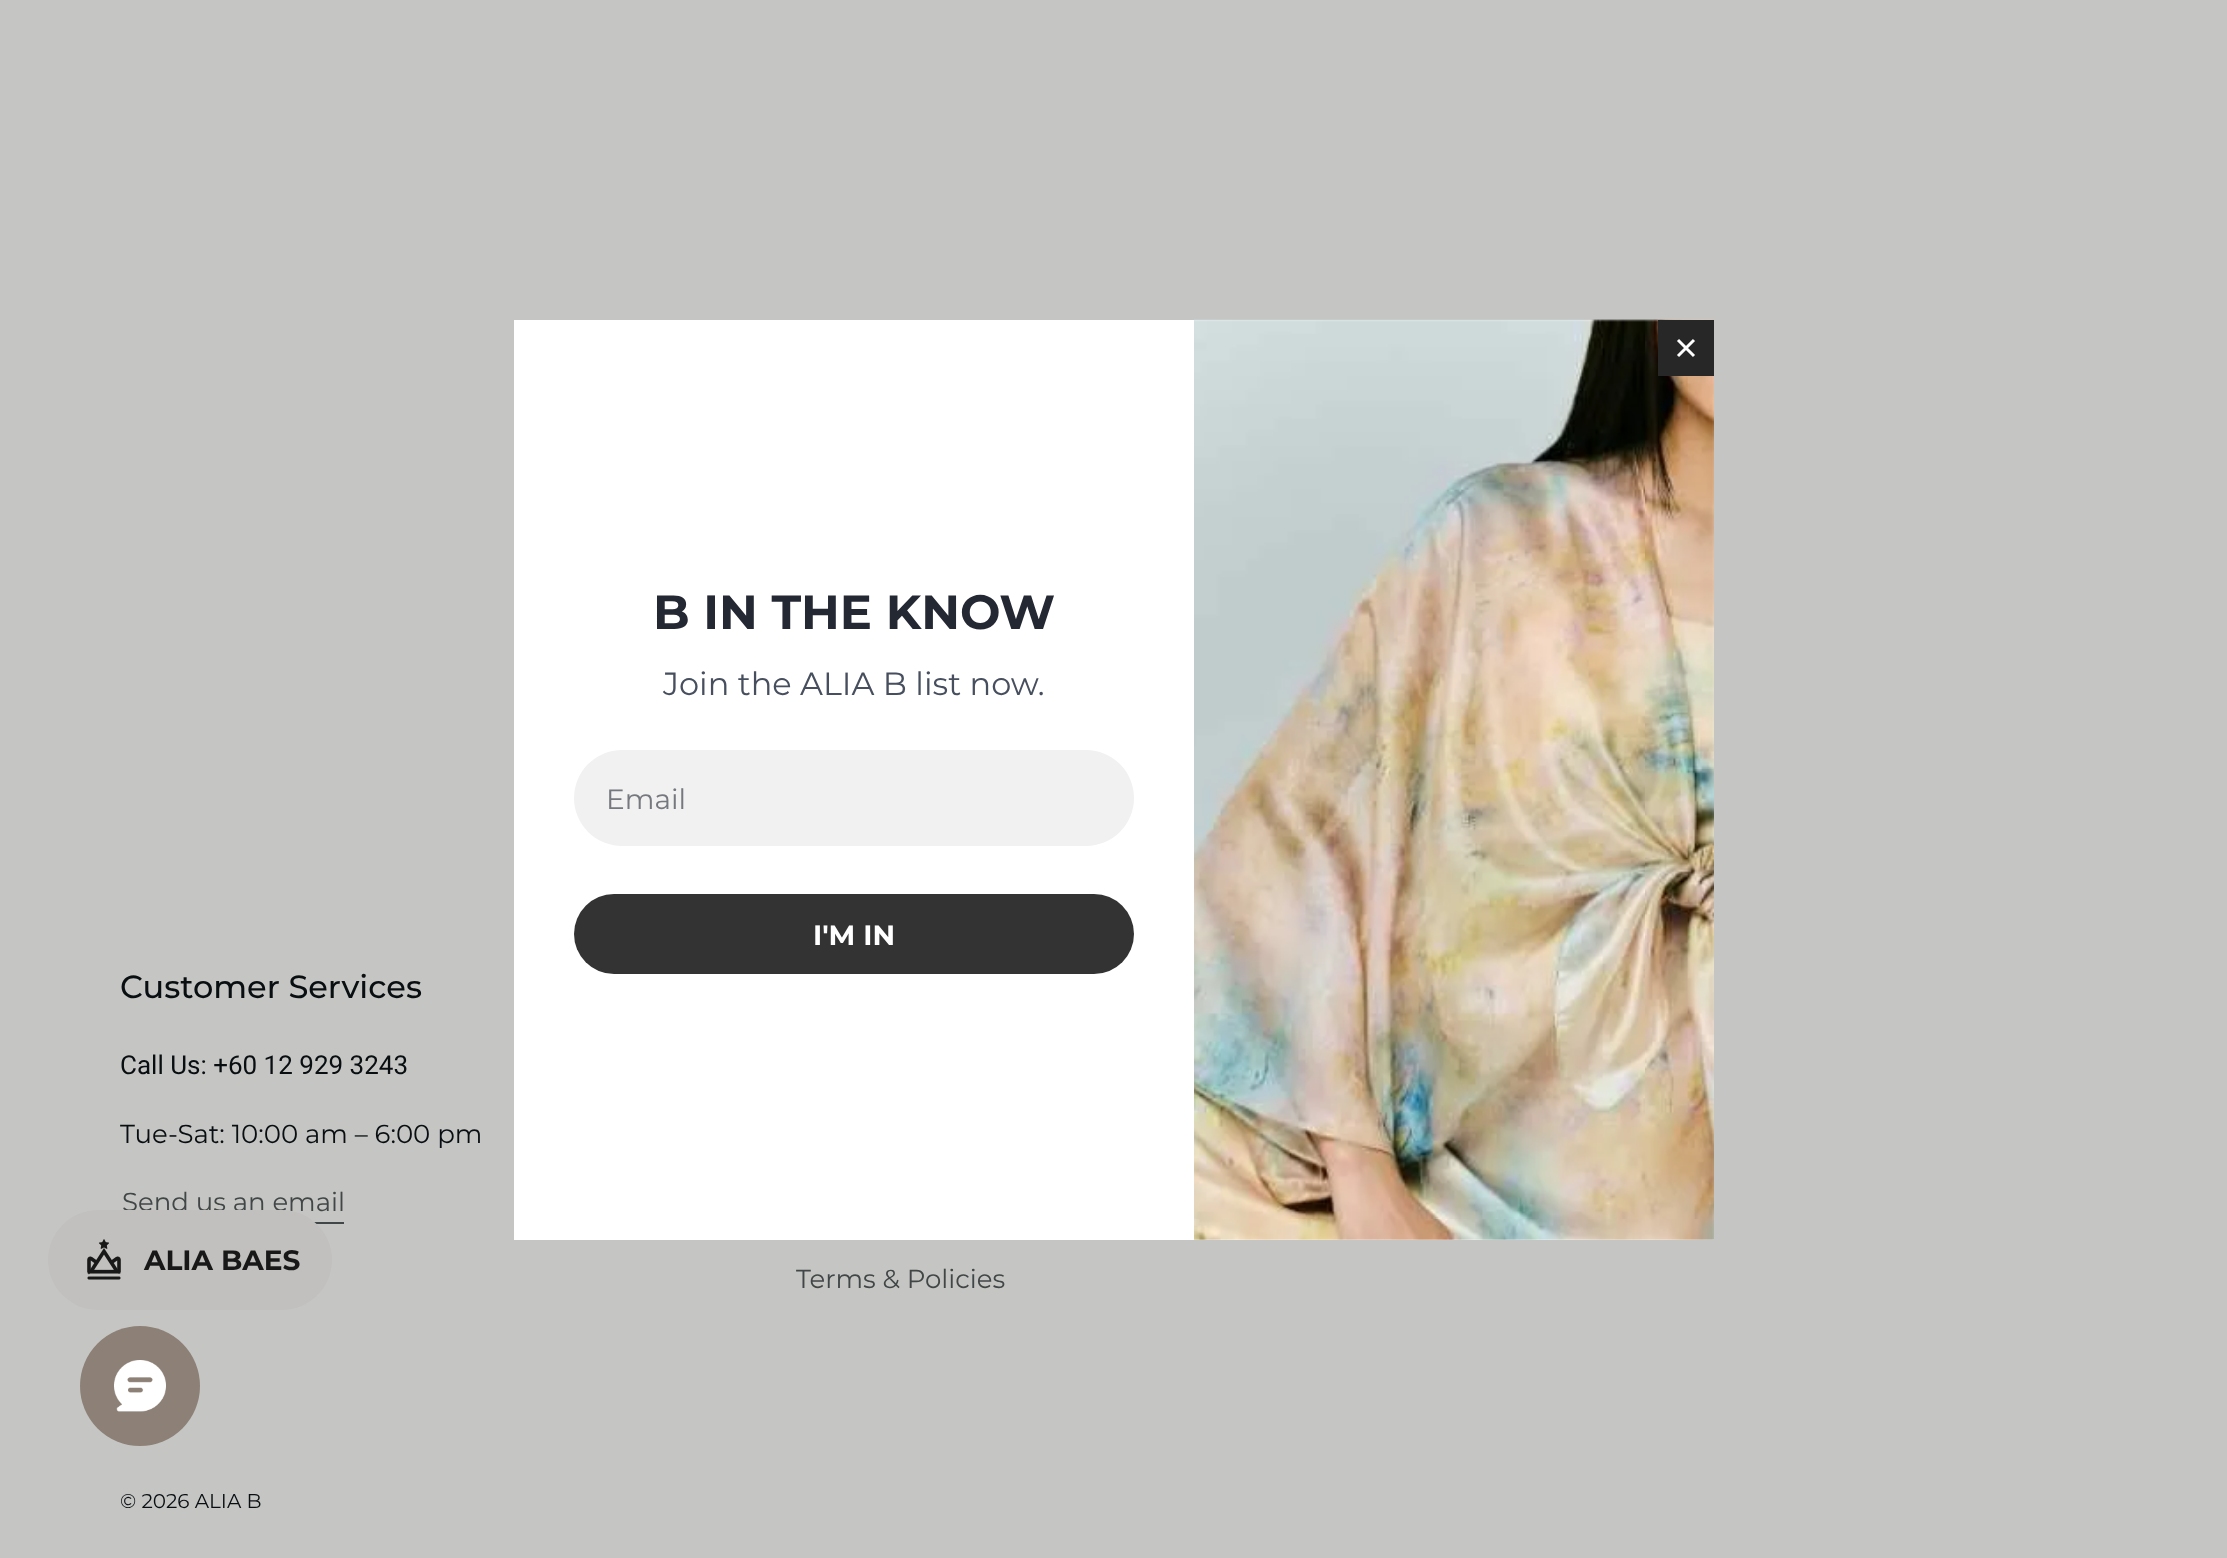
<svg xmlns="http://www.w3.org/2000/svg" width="2227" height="1558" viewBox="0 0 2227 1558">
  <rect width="100%" height="100%" fill="rgb(197,198,196)"/>
  <rect x="514" y="320" width="1200" height="920" fill="rgb(255,255,255)"/>
  <image x="1194" y="319" width="520" height="921" href="pic1.png"/>
  <rect x="1658" y="320" width="56" height="56" fill="rgb(39,39,39)"/>
  <path d="M1694 340L1678 356M1678 340L1694 356" fill="none" stroke="rgb(255,255,255)" stroke-width="3"/>
  <text x="653" y="629" font-family="'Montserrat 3'" font-size="48" font-weight="100" fill="rgb(36,40,51)">B IN THE KNOW</text>
  <text x="663" y="695" font-family="'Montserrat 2'" font-size="32" font-weight="100" fill="rgb(71,79,94)">Join the ALIA B list now.</text>
  <rect x="574" y="750" width="560" height="96" rx="48" fill="rgb(241,241,241)"/>
  <text x="606" y="809" font-family="'Montserrat 2'" font-size="28" font-weight="100" fill="rgb(118,120,127)">Email</text>
  <rect x="574" y="894" width="560" height="80" rx="40" fill="rgb(51,51,51)"/>
  <text x="813" y="945" font-family="'Montserrat 3'" font-size="28" font-weight="100" fill="rgb(255,255,255)">I'M IN</text>
  <text x="120" y="998" font-family="Montserrat" font-size="32" font-weight="100" fill="rgb(9,14,17)">Customer Services</text>
  <text x="120" y="1074" font-family="Roboto" font-size="26" fill="rgb(9,14,17)">Call Us: +60 12 929 3243</text>
  <text x="120" y="1143" font-family="'Montserrat 2'" font-size="26" font-weight="100" fill="rgb(9,14,17)">Tue-Sat: 10:00 am – 6:00 pm</text>
  <text x="122" y="1211" font-family="'Montserrat 2'" font-size="26" font-weight="100" fill="rgb(65,70,70)">Send us an email</text>
  <rect x="314" y="1222" width="30" height="2" fill="rgb(65,70,70)"/>
  <text x="796" y="1288" font-family="'Montserrat 2'" font-size="26" font-weight="100" fill="rgb(65,70,70)">Terms &amp; Policies</text>
  <text x="120" y="1508" font-family="'Montserrat 2'" font-size="20" font-weight="100" fill="rgb(9,14,17)">© 2026 ALIA B</text>
  <rect x="48" y="1210" width="284" height="100" rx="50" fill="rgb(194,192,190)"/>
  <image x="87" y="1239" width="34" height="41" href="pic2.png"/>
  <text x="144" y="1270" font-family="'Montserrat 3'" font-size="28" font-weight="100" fill="rgb(24,24,24)">ALIA BAES</text>
  <circle cx="140" cy="1386" r="60" fill="rgb(141,128,118)"/>
  <image x="114" y="1360" width="52" height="52" href="pic3.png"/>
</svg>
